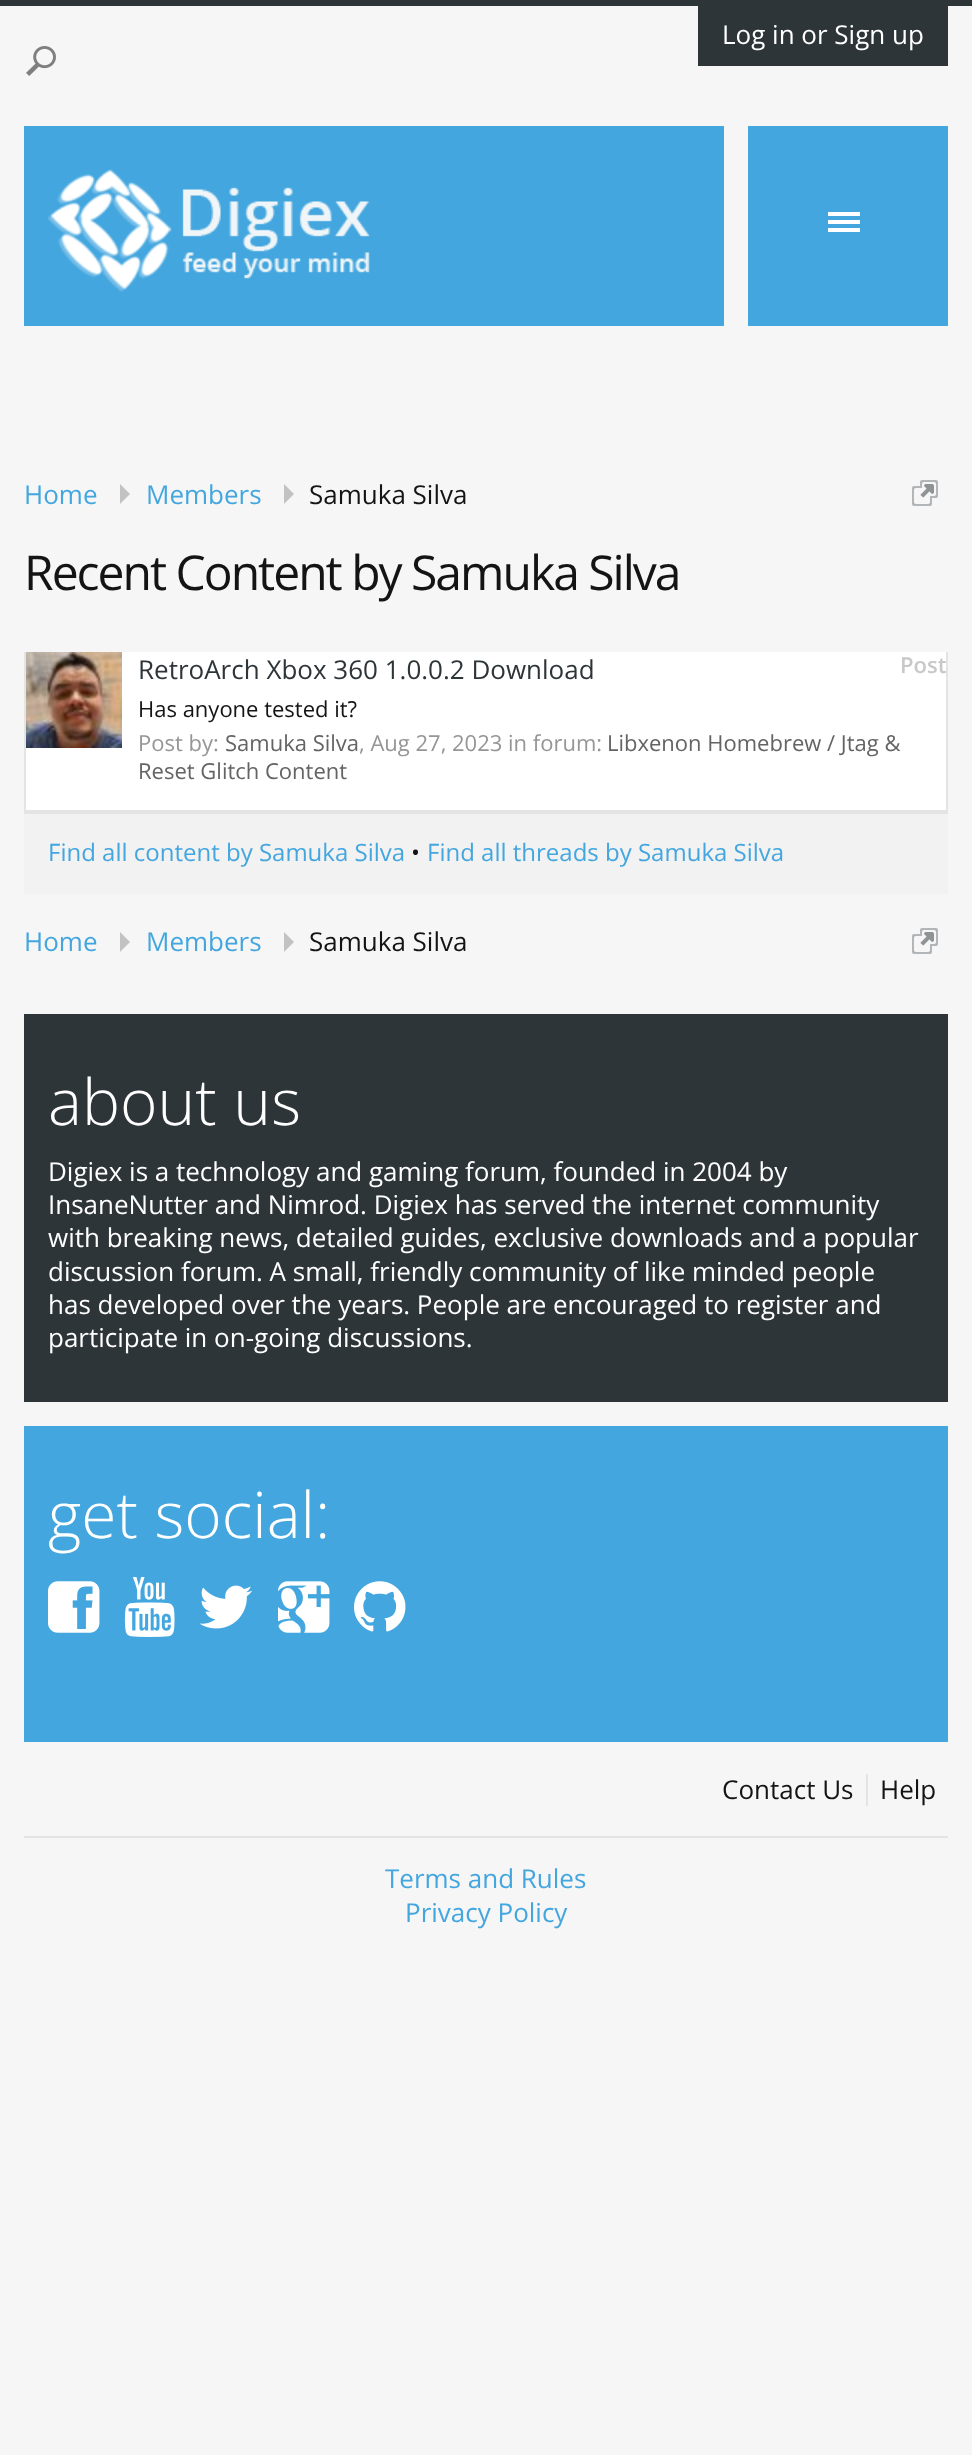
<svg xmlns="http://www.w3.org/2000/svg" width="972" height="2455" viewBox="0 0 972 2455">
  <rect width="100%" height="100%" fill="rgb(246,246,246)"/>
  <rect x="0" y="0" width="972" height="6" fill="rgb(46,53,57)"/>
  <rect x="698" y="6" width="250" height="60" fill="rgb(46,53,57)"/>
  <text x="722" y="44" font-family="Open Sans" font-size="26" fill="rgb(255,255,255)">Log in or Sign up</text>
  <image x="26" y="46" width="30" height="30" href="pic1.png"/>
  <rect x="24" y="126" width="924" height="200" fill="rgb(67,166,223)"/>
  <image x="48" y="169" width="322" height="123" href="pic2.png"/>
  <rect x="724" y="126" width="24" height="200" fill="rgb(246,246,246)"/>
  <rect x="828" y="212" width="32" height="4" fill="rgb(255,255,255)"/>
  <rect x="828" y="220" width="32" height="4" fill="rgb(255,255,255)"/>
  <rect x="828" y="228" width="32" height="4" fill="rgb(255,255,255)"/>
  <text x="24" y="504" font-family="Open Sans" font-size="26" fill="rgb(67,166,223)">Home</text>
  <path d="M120 504V484L130 494Z" fill="rgb(194,194,194)"/>
  <text x="146" y="504" font-family="Open Sans" font-size="26" fill="rgb(67,166,223)">Members</text>
  <path d="M284 504V484L294 494Z" fill="rgb(194,194,194)"/>
  <text x="309" y="504" font-family="Open Sans" font-size="26" fill="rgb(20,20,20)">Samuka Silva</text>
  <image x="912" y="480" width="26" height="26" href="pic3.png"/>
  <text x="24" y="590" font-family="Open Sans" font-size="48" letter-spacing="-2" fill="rgb(20,20,20)">Recent Content by Samuka Silva</text>
  <rect x="26" y="652" width="920" height="158" fill="rgb(255,255,255)"/>
  <rect x="946" y="652" width="2" height="160" fill="rgb(228,228,228)"/>
  <rect x="24" y="810" width="924" height="4" fill="rgb(228,228,228)"/>
  <rect x="24" y="652" width="2" height="160" fill="rgb(228,228,228)"/>
  <image x="26" y="652" width="96" height="96" href="pic4.png"/>
  <text x="138" y="679" font-family="Open Sans" font-size="26" fill="rgb(46,53,57)">RetroArch Xbox 360 1.0.0.2 Download</text>
  <text x="900" y="673" font-family="Open Sans" font-size="22" font-weight="600" fill="rgb(200,200,200)">Post</text>
  <text x="138" y="717" font-family="Open Sans" font-size="22" fill="rgb(20,20,20)">Has anyone tested it?</text>
  <text x="138" y="751" font-family="Open Sans" font-size="22" fill="rgb(150,150,150)">Post by:</text>
  <text x="225" y="751" font-family="Open Sans" font-size="22" fill="rgb(100,100,100)">Samuka Silva</text>
  <text x="359" y="751" font-family="Open Sans" font-size="22" fill="rgb(150,150,150)">, Aug 27, 2023 in forum:</text>
  <g font-family="Open Sans" font-size="22" fill="rgb(100,100,100)">
    <text x="607" y="751">Libxenon Homebrew / Jtag &amp;</text>
    <text x="138" y="779">Reset Glitch Content</text>
  </g>
  <rect x="24" y="814" width="924" height="80" fill="rgb(242,242,242)"/>
  <text x="48" y="861" font-family="Open Sans" font-size="24" fill="rgb(67,166,223)">Find all content by Samuka Silva</text>
  <text x="411" y="861" font-family="Open Sans" font-size="24" fill="rgb(20,20,20)">•</text>
  <text x="427" y="861" font-family="Open Sans" font-size="24" fill="rgb(67,166,223)">Find all threads by Samuka Silva</text>
  <text x="24" y="951" font-family="Open Sans" font-size="26" fill="rgb(67,166,223)">Home</text>
  <path d="M120 952V932L130 942Z" fill="rgb(194,194,194)"/>
  <text x="146" y="951" font-family="Open Sans" font-size="26" fill="rgb(67,166,223)">Members</text>
  <path d="M284 952V932L294 942Z" fill="rgb(194,194,194)"/>
  <text x="309" y="951" font-family="Open Sans" font-size="26" fill="rgb(20,20,20)">Samuka Silva</text>
  <image x="912" y="928" width="26" height="26" href="pic3.png"/>
  <rect x="24" y="1014" width="924" height="388" fill="rgb(46,53,57)"/>
  <text x="48" y="1125" font-family="Open Sans" font-size="64" font-weight="300" fill="rgb(255,255,255)">about us</text>
  <g font-family="Open Sans" font-size="26" fill="rgb(255,255,255)">
    <text>
      <tspan x="48" y="1181">Digiex is a technology and gaming forum, founded in 2004 by</tspan>
      <tspan x="48" y="1214">InsaneNutter and Nimrod. Digiex has served the internet community</tspan>
      <tspan x="48" y="1247">with breaking news, detailed guides, exclusive downloads and a popular</tspan>
      <tspan x="48" y="1281">discussion forum. A small, friendly community of like minded people</tspan>
      <tspan x="48" y="1314">has developed over the years. People are encouraged to register and</tspan>
      <tspan x="48" y="1347">participate in on-going discussions.</tspan>
    </text>
  </g>
  <rect x="24" y="1426" width="924" height="316" fill="rgb(67,166,223)"/>
  <text x="48" y="1538" font-family="Open Sans" font-size="64" font-weight="300" fill="rgb(255,255,255)">get social:</text>
  <image x="48" y="1581" width="52" height="52" href="pic5.png"/>
  <image x="124" y="1577" width="51" height="60" href="pic6.png"/>
  <image x="199" y="1585" width="54" height="44" href="pic7.png"/>
  <image x="278" y="1581" width="52" height="52" href="pic8.png"/>
  <image x="354" y="1581" width="52" height="51" href="pic9.png"/>
  <rect x="24" y="1836" width="924" height="2" fill="rgb(228,228,228)"/>
  <text x="722" y="1799" font-family="Open Sans" font-size="26" fill="rgb(20,20,20)">Contact Us</text>
  <rect x="866" y="1774" width="2" height="32" fill="rgb(228,228,228)"/>
  <text x="880" y="1799" font-family="Open Sans" font-size="26" fill="rgb(20,20,20)">Help</text>
  <g font-family="Open Sans" font-size="26" fill="rgb(67,166,223)">
    <text x="385" y="1888">Terms and Rules</text>
    <text x="405" y="1922">Privacy Policy</text>
  </g>
</svg>
